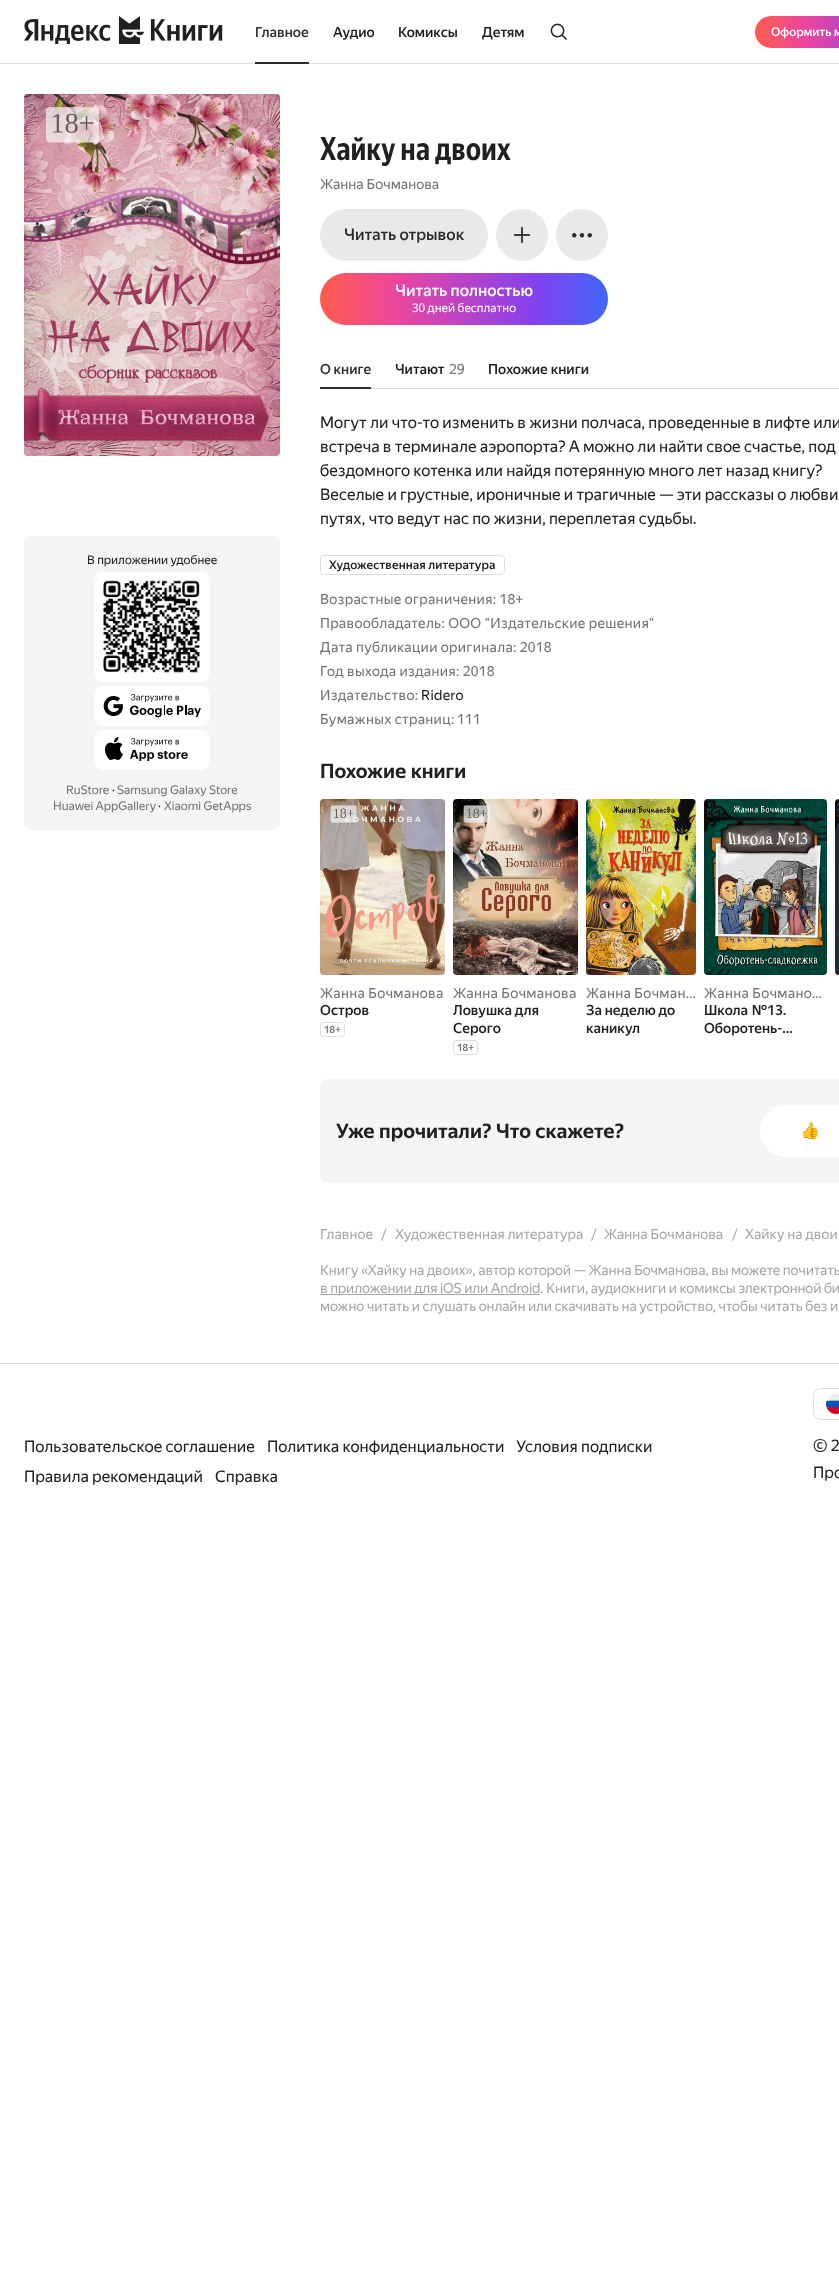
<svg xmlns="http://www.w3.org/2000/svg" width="839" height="2282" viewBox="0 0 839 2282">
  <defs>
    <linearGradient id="g1" gradientUnits="userSpaceOnUse" x1="755" y1="32" x2="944" y2="32"><stop offset="0" stop-color="rgb(255,92,77)"/><stop offset="0.27" stop-color="rgb(235,70,159)"/><stop offset="0.75" stop-color="rgb(131,65,239)"/><stop offset="1" stop-color="rgb(63,104,249)"/></linearGradient>
    <linearGradient id="g2" gradientUnits="userSpaceOnUse" x1="320" y1="299" x2="608" y2="299"><stop offset="0" stop-color="rgb(255,92,77)"/><stop offset="0.27" stop-color="rgb(235,70,159)"/><stop offset="0.75" stop-color="rgb(131,65,239)"/><stop offset="1" stop-color="rgb(63,104,249)"/></linearGradient>
  </defs>
  <rect width="100%" height="100%" fill="rgb(255,255,255)"/>
  <rect x="0" y="63" width="839" height="1" fill="rgb(222,222,222)"/>
  <image x="24" y="16" width="199" height="28" href="pic1.png"/>
  <rect x="255" y="62" width="54" height="2" fill="rgb(45,45,45)"/>
  <text x="255" y="37" font-family="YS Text" font-size="14" font-weight="500" fill="rgb(45,45,45)">Главное</text>
  <g font-family="YS Text" font-size="14" font-weight="500" fill="rgb(34,32,31)">
    <text x="333" y="37">Аудио</text>
    <text x="398" y="37">Комиксы</text>
    <text x="482" y="37">Детям</text>
  </g>
  <image x="550" y="23" width="17" height="17" href="pic2.png"/>
  <rect x="755" y="16" width="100" height="32" rx="16" fill="url(#g1)"/>
  <text x="771" y="36" font-family="YS Text" font-size="12" font-weight="500" fill="rgb(255,255,255)">Оформить м</text>
  <image x="24" y="94" width="256" height="362" href="pic3.png"/>
  <rect x="24" y="94" width="256" height="362" fill="rgba(0,0,0,0.03)"/>
  <rect x="24" y="536" width="256" height="294" rx="8" fill="rgb(245,245,245)"/>
  <text x="87" y="564" font-family="YS Text" font-size="12" fill="rgb(34,32,31)">В приложении удобнее</text>
  <rect x="94" y="572" width="116" height="110" rx="8" fill="rgb(255,255,255)"/>
  <image x="103" y="580" width="97" height="93" href="pic4.png"/>
  <rect x="94" y="686" width="116" height="40" rx="8" fill="rgb(255,255,255)"/>
  <image x="103" y="694" width="98" height="24" href="pic5.png"/>
  <rect x="94" y="730" width="116" height="40" rx="8" fill="rgb(255,255,255)"/>
  <image x="105" y="737" width="83" height="24" href="pic6.png"/>
  <text x="66" y="794" font-family="YS Text" font-size="12" fill="rgb(116,114,114)">RuStore</text>
  <text x="112" y="794" font-family="YS Text" font-size="12" fill="rgb(34,32,31)">·</text>
  <g font-family="YS Text" font-size="12" fill="rgb(116,114,114)">
    <text x="117" y="794">Samsung Galaxy Store</text>
    <text x="53" y="810">Huawei AppGallery</text>
  </g>
  <text x="158" y="810" font-family="YS Text" font-size="12" fill="rgb(34,32,31)">·</text>
  <text x="164" y="810" font-family="YS Text" font-size="12" fill="rgb(116,114,114)">Xiaomi GetApps</text>
  <text x="320" y="160" font-family="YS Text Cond" font-size="32" font-weight="bold" fill="rgb(34,32,31)">Хайку на двоих</text>
  <text x="320" y="189" font-family="YS Text" font-size="14" fill="rgb(116,114,114)">Жанна Бочманова</text>
  <rect x="320" y="209" width="168" height="52" rx="26" fill="rgb(233,233,233)"/>
  <text x="344" y="240" font-family="YS Text" font-size="16" font-weight="500" fill="rgb(45,45,45)">Читать отрывок</text>
  <circle cx="522" cy="235" r="26" fill="rgb(233,233,233)"/>
  <image x="513" y="226" width="18" height="18" href="pic7.png"/>
  <circle cx="582" cy="235" r="26" fill="rgb(233,233,233)"/>
  <image x="572" y="233" width="20" height="5" href="pic8.png"/>
  <rect x="320" y="273" width="288" height="52" rx="26" fill="url(#g2)"/>
  <text x="395" y="296" font-family="YS Text" font-size="16" font-weight="500" fill="rgb(255,255,255)">Читать полностью</text>
  <text x="412" y="312" font-family="YS Text" font-size="12" fill="rgb(255,255,255)">30 дней бесплатно</text>
  <rect x="320" y="387" width="51" height="2" fill="rgb(45,45,45)"/>
  <text x="320" y="374" font-family="YS Text" font-size="14" font-weight="500" fill="rgb(45,45,45)">О книге</text>
  <text x="395" y="374" font-family="YS Text" font-size="14" font-weight="500" fill="rgb(34,32,31)">Читают</text>
  <text x="449" y="374" font-family="YS Text" font-size="14" fill="rgb(116,114,114)">29</text>
  <text x="488" y="374" font-family="YS Text" font-size="14" font-weight="500" fill="rgb(34,32,31)">Похожие книги</text>
  <rect x="371" y="388" width="468" height="1" fill="rgb(222,222,222)"/>
  <g font-family="YS Text" font-size="16" fill="rgb(34,32,31)">
    <text>
      <tspan x="320" y="428">Могут ли что-то изменить в жизни полчаса, проведенные в лифте или</tspan>
      <tspan x="320" y="452">встреча в терминале аэропорта? А можно ли найти свое счастье, под</tspan>
      <tspan x="320" y="476">бездомного котенка или найдя потерянную много лет назад книгу?</tspan>
      <tspan x="320" y="500">Веселые и грустные, ироничные и трагичные — эти рассказы о любви</tspan>
      <tspan x="320" y="524">путях, что ведут нас по жизни, переплетая судьбы.</tspan>
    </text>
  </g>
  <rect x="320.5" y="555.5" width="184" height="19" rx="3.5" fill="none" stroke="rgb(222,222,222)"/>
  <text x="329" y="569" font-family="YS Text" font-size="12" font-weight="500" letter-spacing="0.1" fill="rgb(34,32,31)">Художественная литература</text>
  <g font-family="YS Text" font-size="14" letter-spacing="0.3" fill="rgb(116,114,114)">
    <text>
      <tspan x="320" y="604">Возрастные ограничения: 18+</tspan>
      <tspan x="320" y="628">Правообладатель: ООО "Издательские решения"</tspan>
      <tspan x="320" y="652">Дата публикации оригинала: 2018</tspan>
      <tspan x="320" y="676">Год выхода издания: 2018</tspan>
      <tspan x="320" y="700">Издательство:</tspan>
    </text>
  </g>
  <text x="421" y="700" font-family="YS Text" font-size="14" letter-spacing="0.3" fill="rgb(34,32,31)">Ridero</text>
  <g font-family="YS Text" font-size="14" letter-spacing="0.3" fill="rgb(116,114,114)">
    <text x="320" y="724">Бумажных страниц:</text>
    <text x="457" y="724">111</text>
  </g>
  <text x="320" y="778" font-family="YS Text" font-size="20" font-weight="bold" fill="rgb(34,32,31)">Похожие книги</text>
  <image x="835" y="799" width="4" height="176" href="pic9.png"/>
  <rect x="835" y="799" width="3" height="176" fill="rgba(0,0,0,0.03)"/>
  <image x="320" y="799" width="125" height="176" href="pic10.png"/>
  <rect x="320" y="799" width="125" height="176" fill="rgba(0,0,0,0.03)"/>
  <text x="320" y="998" font-family="YS Text" font-size="14" letter-spacing="0.3" fill="rgb(116,114,114)">Жанна Бочманова</text>
  <text x="320" y="1015" font-family="YS Text" font-size="14" font-weight="500" fill="rgb(34,32,31)">Остров</text>
  <rect x="320.5" y="1022.5" width="24" height="14" rx="2.5" fill="none" stroke="rgb(222,222,222)"/>
  <text x="324" y="1033" font-family="YS Text" font-size="10" font-weight="500" fill="rgb(116,114,114)">18+</text>
  <image x="453" y="799" width="125" height="176" href="pic11.png"/>
  <rect x="453" y="799" width="125" height="176" fill="rgba(0,0,0,0.03)"/>
  <text x="453" y="998" font-family="YS Text" font-size="14" letter-spacing="0.3" fill="rgb(116,114,114)">Жанна Бочманова</text>
  <g font-family="YS Text" font-size="14" font-weight="500" fill="rgb(34,32,31)">
    <text>
      <tspan x="453" y="1015">Ловушка для</tspan>
      <tspan x="453" y="1033">Серого</tspan>
    </text>
  </g>
  <rect x="453.5" y="1040.5" width="24" height="14" rx="2.5" fill="none" stroke="rgb(222,222,222)"/>
  <text x="457" y="1051" font-family="YS Text" font-size="10" font-weight="500" fill="rgb(116,114,114)">18+</text>
  <image x="586" y="799" width="110" height="176" href="pic12.png"/>
  <rect x="586" y="799" width="110" height="176" fill="rgba(0,0,0,0.03)"/>
  <text x="586" y="998" font-family="YS Text" font-size="14" letter-spacing="0.3" fill="rgb(116,114,114)">Жанна Бочман…</text>
  <g font-family="YS Text" font-size="14" font-weight="500" fill="rgb(34,32,31)">
    <text>
      <tspan x="586" y="1015">За неделю до</tspan>
      <tspan x="586" y="1033">каникул</tspan>
    </text>
  </g>
  <image x="704" y="799" width="123" height="176" href="pic13.png"/>
  <rect x="704" y="799" width="123" height="176" fill="rgba(0,0,0,0.03)"/>
  <text x="704" y="998" font-family="YS Text" font-size="14" letter-spacing="0.3" fill="rgb(116,114,114)">Жанна Бочмано…</text>
  <g font-family="YS Text" font-size="14" font-weight="500" fill="rgb(34,32,31)">
    <text>
      <tspan x="704" y="1015" word-spacing="1">Школа №13.</tspan>
      <tspan x="704" y="1033">Оборотень-…</tspan>
    </text>
  </g>
  <rect x="320" y="1079" width="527" height="104" rx="8" fill="rgb(245,245,245)"/>
  <text x="336" y="1138" font-family="YS Text" font-size="20" font-weight="bold" fill="rgb(34,32,31)">Уже прочитали? Что скажете?</text>
  <rect x="760" y="1105" width="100" height="52" rx="26" fill="rgb(255,255,255)"/>
  <text x="800" y="1136" font-family="Noto Color Emoji" font-size="16" fill="rgb(45,45,45)">👍</text>
  <g font-family="YS Text" font-size="14" fill="rgb(167,167,167)">
    <text x="320" y="1239">Главное</text>
    <text x="381" y="1239">/</text>
    <text x="395" y="1239">Художественная литература</text>
    <text x="591" y="1239">/</text>
    <text x="604" y="1239">Жанна Бочманова</text>
    <text x="732" y="1239">/</text>
    <text x="745" y="1239">Хайку на двои</text>
  </g>
  <text x="320" y="1275" font-family="YS Text" font-size="14" letter-spacing="-0.15" fill="rgb(167,167,167)">Книгу «Хайку на двоих», автор которой — Жанна Бочманова, вы можете почитать</text>
  <rect x="320" y="1294" width="220" height="1" fill="rgb(167,167,167)"/>
  <g font-family="YS Text" font-size="14" letter-spacing="-0.15" fill="rgb(167,167,167)">
    <text>
      <tspan x="320" y="1293">в приложении для iOS или Android. Книги, аудиокниги и комиксы электронной би</tspan>
      <tspan x="320" y="1311">можно читать и слушать онлайн или скачивать на устройство, чтобы читать без и</tspan>
    </text>
  </g>
  <rect x="0" y="1363" width="839" height="1" fill="rgb(222,222,222)"/>
  <g font-family="YS Text" font-size="16" fill="rgb(34,32,31)">
    <text x="24" y="1452">Пользовательское соглашение</text>
    <text x="267" y="1452">Политика конфиденциальности</text>
    <text x="516" y="1452">Условия подписки</text>
    <text x="24" y="1482">Правила рекомендаций</text>
    <text x="215" y="1482">Справка</text>
  </g>
  <rect x="813.5" y="1388.5" width="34" height="31" rx="7.5" fill="none" stroke="rgb(222,222,222)"/>
  <image x="826" y="1394" width="13" height="20" href="pic14.png"/>
  <g font-family="YS Text" font-size="16" fill="rgb(34,32,31)">
    <text>
      <tspan x="813" y="1451">© 2</tspan>
      <tspan x="813" y="1478">Про</tspan>
    </text>
  </g>
</svg>
